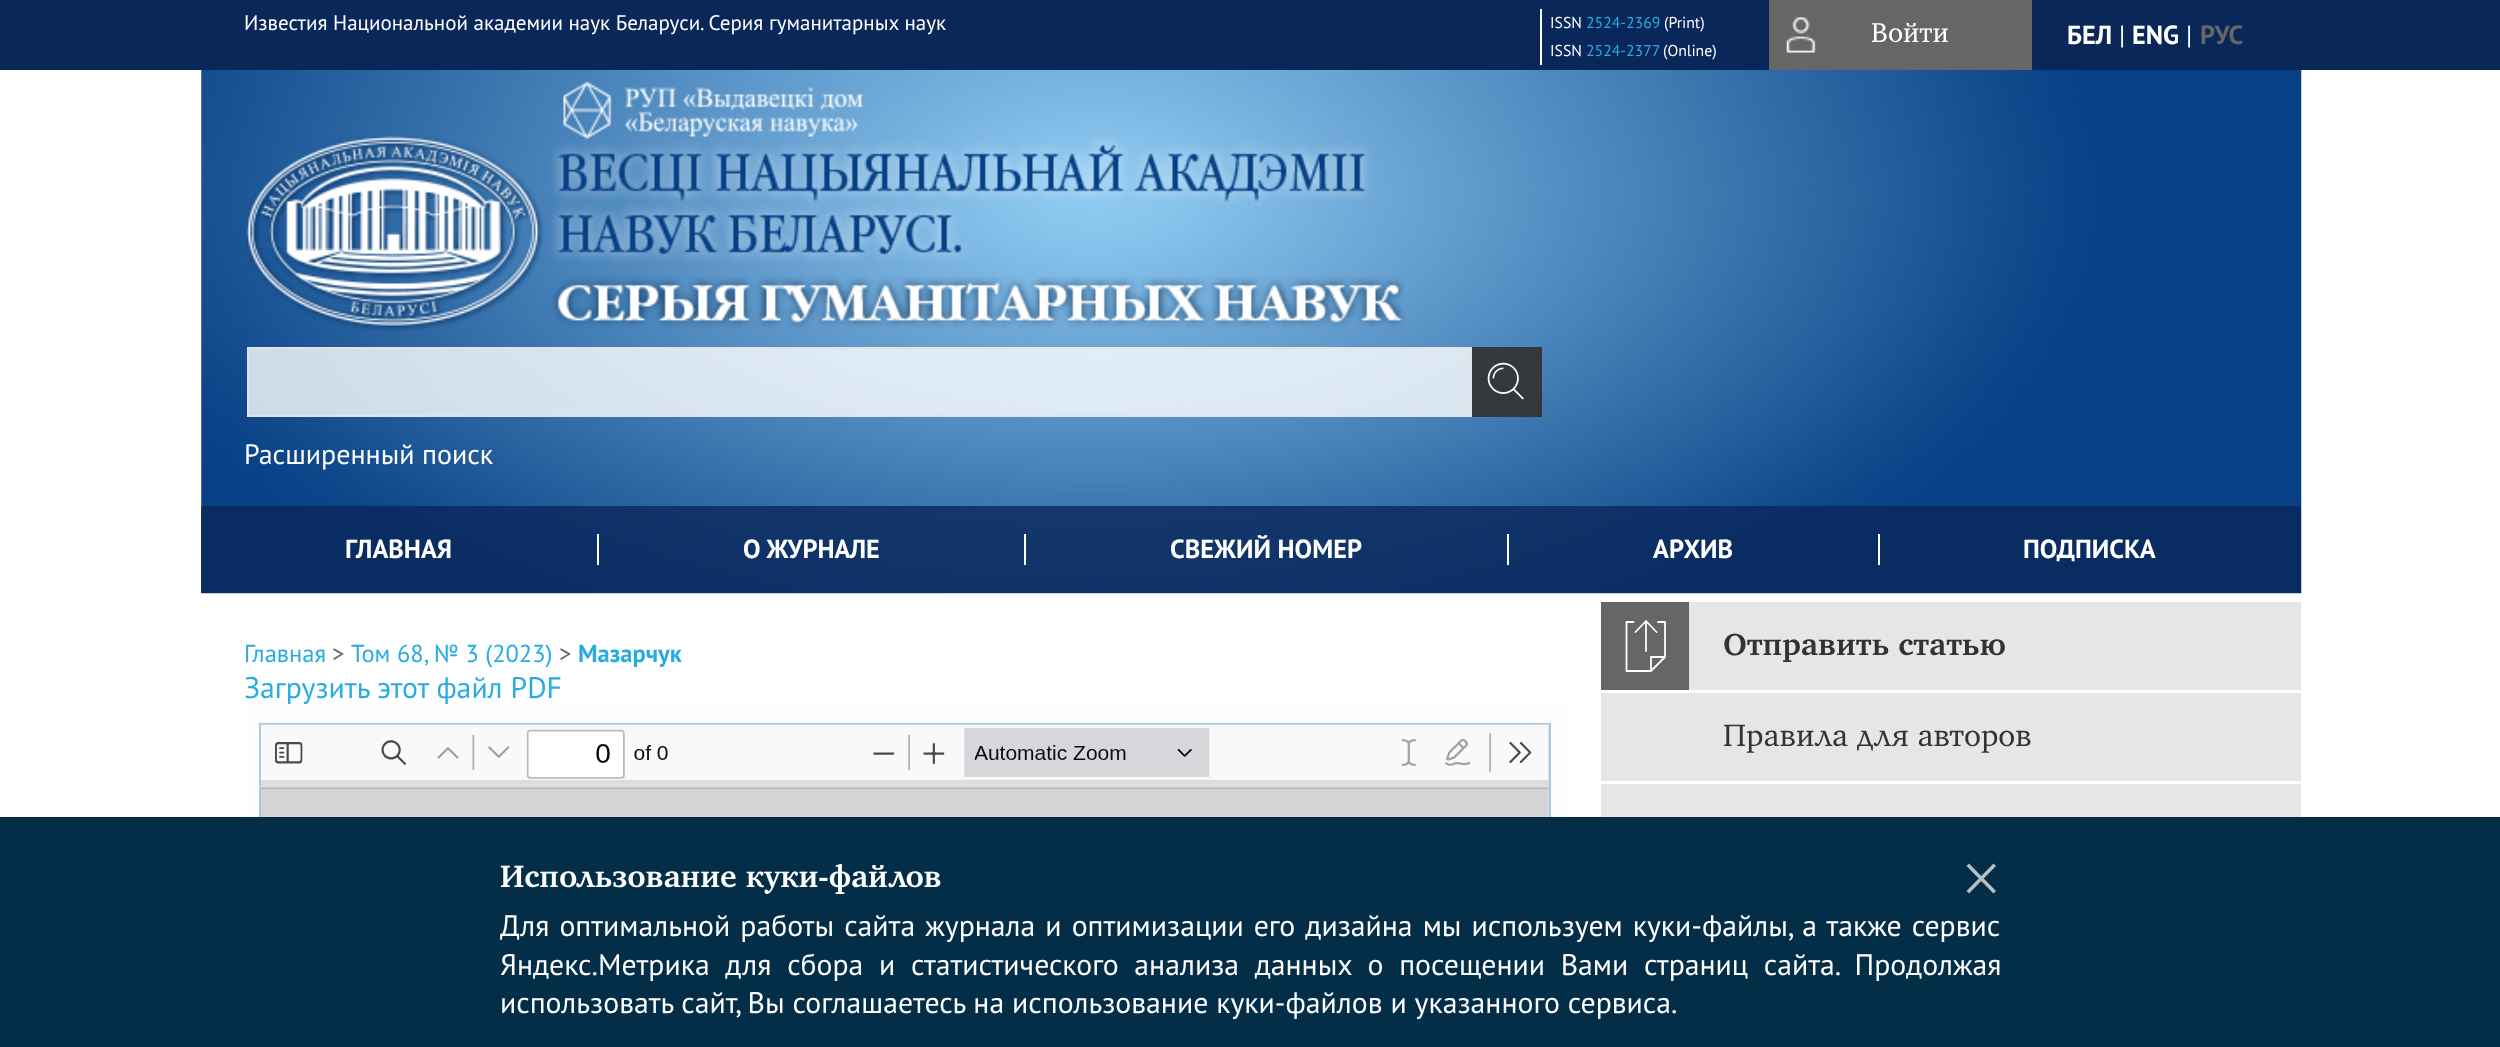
<svg xmlns="http://www.w3.org/2000/svg" width="2500" height="1047" viewBox="0 0 2500 1047">
  <rect width="100%" height="100%" fill="rgb(255,255,255)"/>
  <rect x="0" y="0" width="2500" height="70" fill="rgb(10,39,90)"/>
  <text x="244" y="30" font-family="PT Sans" font-size="21" fill="rgb(255,255,255)">Известия Национальной академии наук Беларуси. Серия гуманитарных наук</text>
  <rect x="1540" y="9" width="2" height="56" fill="rgb(255,255,255)"/>
  <text x="1550" y="28" font-family="PT Sans" font-size="15.75" fill="rgb(255,255,255)">ISSN</text>
  <text x="1586" y="28" font-family="PT Sans" font-size="15.75" fill="rgb(41,171,226)">2524-2369</text>
  <g font-family="PT Sans" font-size="15.75" fill="rgb(255,255,255)">
    <text x="1664" y="28">(Print)</text>
    <text x="1550" y="56">ISSN</text>
  </g>
  <text x="1586" y="56" font-family="PT Sans" font-size="15.75" fill="rgb(41,171,226)">2524-2377</text>
  <text x="1663" y="56" font-family="PT Sans" font-size="15.75" fill="rgb(255,255,255)">(Online)</text>
  <rect x="1769" y="0" width="263" height="70" fill="rgb(102,102,102)"/>
  <image x="1786" y="17" width="30" height="36" href="pic1.png"/>
  <text x="1871" y="42" font-family="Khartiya" font-size="28" fill="rgb(255,255,255)">Войти</text>
  <text x="2067" y="44" font-family="PT Sans" font-size="26.25" font-weight="bold" fill="rgb(255,255,255)">БЕЛ</text>
  <text x="2119" y="44" font-family="PT Sans" font-size="26.25" fill="rgb(255,255,255)">|</text>
  <text x="2132" y="44" font-family="PT Sans" font-size="26.25" font-weight="bold" fill="rgb(255,255,255)">ENG</text>
  <text x="2186" y="44" font-family="PT Sans" font-size="26.25" fill="rgb(255,255,255)">|</text>
  <text x="2200" y="44" font-family="PT Sans" font-size="26.25" font-weight="bold" fill="rgb(102,102,102)">РУС</text>
  <image x="201" y="70" width="2101" height="524" href="pic2.png"/>
  <image x="246" y="81" width="1159" height="250" href="pic3.png"/>
  <rect x="248" y="348" width="1223" height="68" fill="rgba(255,255,255,0.8)" stroke="rgb(227,227,227)" stroke-width="2"/>
  <rect x="1472" y="347" width="70" height="70" fill="rgba(51,51,51,0.8)"/>
  <image x="1472" y="347" width="70" height="70" href="pic4.png"/>
  <text x="244" y="464" font-family="PT Sans" font-size="28" fill="rgb(255,255,255)">Расширенный поиск</text>
  <rect x="201" y="506" width="2100" height="87" fill="rgba(10,39,90,0.8)"/>
  <rect x="597" y="534" width="2" height="31" fill="rgb(255,255,255)"/>
  <text x="345" y="558" font-family="PT Sans" font-size="26.25" font-weight="bold" fill="rgb(255,255,255)">ГЛАВНАЯ</text>
  <rect x="1024" y="534" width="2" height="31" fill="rgb(255,255,255)"/>
  <text x="743" y="558" font-family="PT Sans" font-size="26.25" font-weight="bold" fill="rgb(255,255,255)">О ЖУРНАЛЕ</text>
  <rect x="1507" y="534" width="2" height="31" fill="rgb(255,255,255)"/>
  <text x="1170" y="558" font-family="PT Sans" font-size="26.25" font-weight="bold" fill="rgb(255,255,255)">СВЕЖИЙ НОМЕР</text>
  <rect x="1878" y="534" width="2" height="31" fill="rgb(255,255,255)"/>
  <g font-family="PT Sans" font-size="26.25" font-weight="bold" fill="rgb(255,255,255)">
    <text x="1653" y="558">АРХИВ</text>
    <text x="2023" y="558">ПОДПИСКА</text>
  </g>
  <text x="244" y="662" font-family="PT Sans" font-size="24.5" fill="rgb(41,171,226)">Главная</text>
  <text x="332" y="662" font-family="PT Sans" font-size="24.5" fill="rgb(102,102,102)">&gt;</text>
  <text x="351" y="662" font-family="PT Sans" font-size="24.5" fill="rgb(41,171,226)">Том 68, № 3 (2023)</text>
  <text x="559" y="662" font-family="PT Sans" font-size="24.5" fill="rgb(102,102,102)">&gt;</text>
  <text x="578" y="662" font-family="PT Sans" font-size="24.5" font-weight="bold" fill="rgb(41,171,226)">Мазарчук</text>
  <text x="244" y="698" font-family="PT Sans" font-size="29.75" fill="rgb(41,171,226)">Загрузить этот файл PDF</text>
  <rect x="245" y="707" width="1321" height="110" fill="rgb(252,253,253)"/>
  <image x="1548" y="725" width="1" height="92" href="pic6.png"/>
  <rect x="260" y="724" width="1290" height="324" fill="none" stroke="rgb(166,201,226)" stroke-width="2"/>
  <image x="260" y="724" width="1289" height="93" href="pic5.png"/>
  <rect x="1689" y="602" width="612" height="88" fill="rgb(230,230,230)"/>
  <rect x="1601" y="602" width="88" height="88" fill="rgb(102,102,102)"/>
  <path d="M1633.5 622H1626.5V671H1651L1665 657V622H1658M1635.5 632L1646 621L1656.5 632M1646 651V622M1651 671V657H1665" fill="none" stroke="rgb(255,255,255)" stroke-width="1.8" stroke-linecap="round" stroke-linejoin="round"/>
  <text x="1723" y="655" font-family="Khartiya" font-size="31.5" font-weight="bold" fill="rgb(51,51,51)">Отправить статью</text>
  <rect x="1601" y="693" width="700" height="88" fill="rgb(230,230,230)"/>
  <text x="1723" y="746" font-family="Khartiya" font-size="31.5" fill="rgb(51,51,51)">Правила для авторов</text>
  <rect x="1601" y="784" width="700" height="33" fill="rgb(230,230,230)"/>
  <rect x="0" y="817" width="2500" height="230" fill="rgb(4,46,71)"/>
  <text x="500" y="887" font-family="Khartiya" font-size="31.5" font-weight="bold" fill="rgb(255,255,255)">Использование куки-файлов</text>
  <path d="M1993.5 863.5L1996 866L1969 893.5L1966.5 891Z" fill="rgb(180,192,200)"/>
  <path d="M1966.5 866L1969 863.5L1996 891L1993.5 893.5Z" fill="rgb(180,192,200)"/>
  <g font-family="PT Sans" font-size="29.75" fill="rgb(255,255,255)">
    <text>
      <tspan x="500" y="936" word-spacing="2.1">Для оптимальной работы сайта журнала и оптимизации его дизайна мы используем куки-файлы, а также сервис</tspan>
      <tspan x="500" y="975" word-spacing="7.75">Яндекс.Метрика для сбора и статистического анализа данных о посещении Вами страниц сайта. Продолжая</tspan>
      <tspan x="500" y="1013">использовать сайт, Вы соглашаетесь на использование куки-файлов и указанного сервиса.</tspan>
    </text>
  </g>
</svg>
